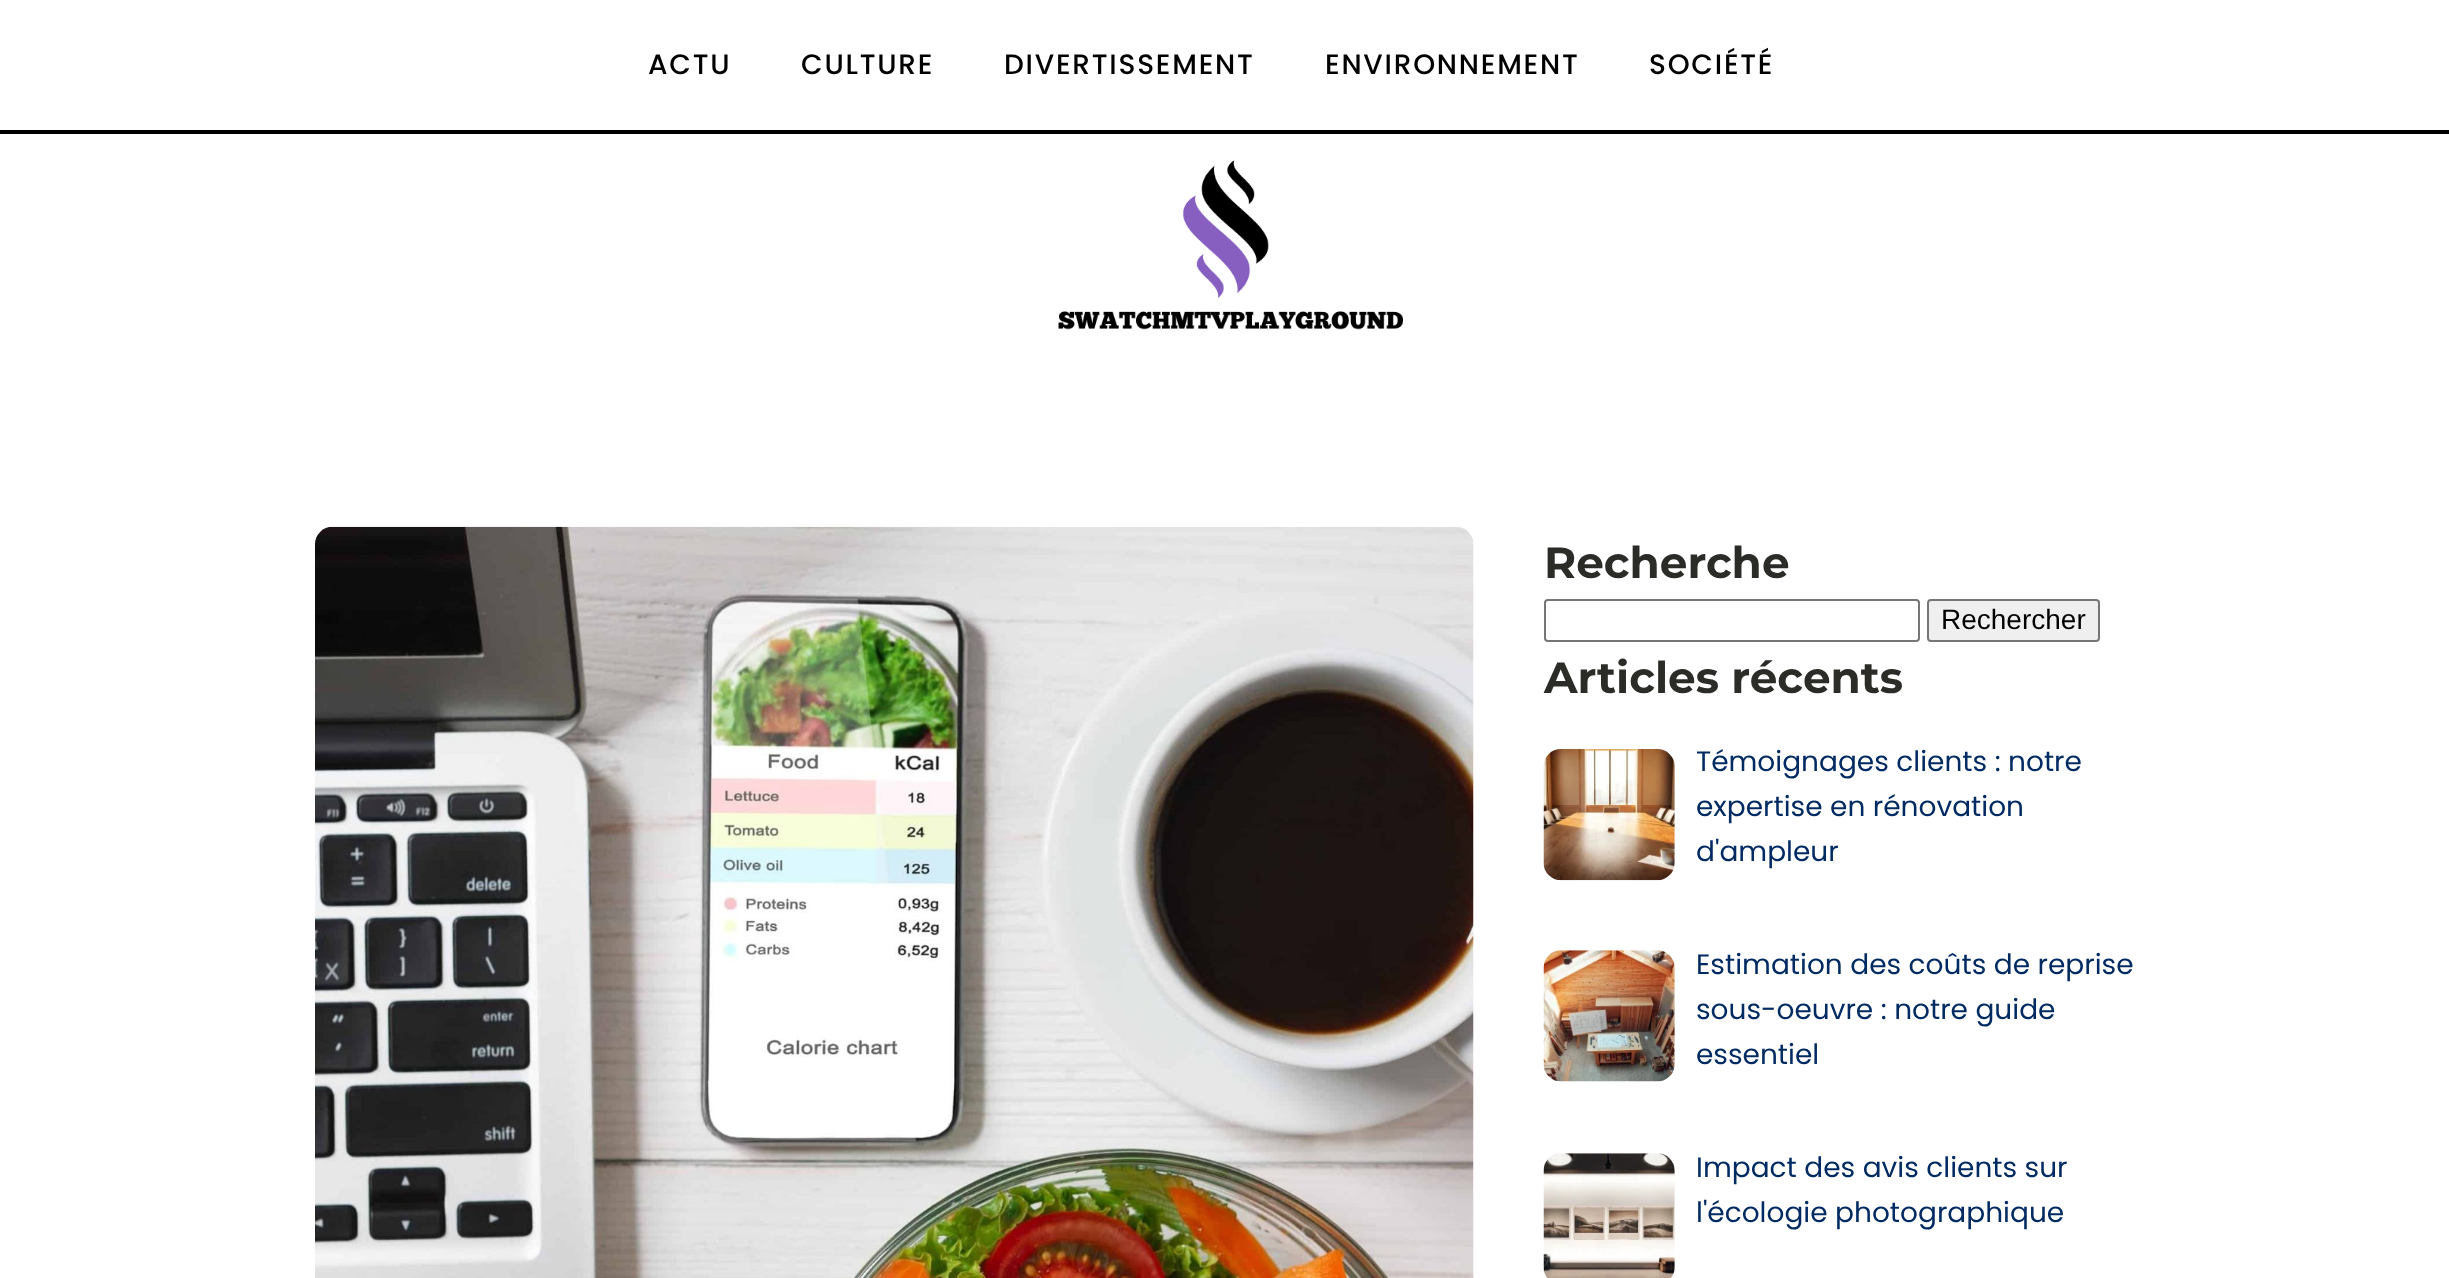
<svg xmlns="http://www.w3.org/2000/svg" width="2449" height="1278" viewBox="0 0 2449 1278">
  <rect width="100%" height="100%" fill="rgb(255,255,255)"/>
  <rect x="0" y="130" width="2449" height="4" fill="rgb(0,0,0)"/>
  <g font-family="Poppins" font-size="28" font-weight="500" letter-spacing="1.75" fill="rgb(0,0,0)">
    <text x="648" y="74">ACTU</text>
    <text x="801" y="74">CULTURE</text>
    <text x="1004" y="74">DIVERTISSEMENT</text>
    <text x="1325" y="74">ENVIRONNEMENT</text>
    <text x="1649" y="74">SOCIÉTÉ</text>
  </g>
  <image x="1058" y="160" width="345" height="170" href="pic1.png"/>
  <image x="315" y="526" width="1159" height="752" href="pic2.png"/>
  <text x="1544" y="578" font-family="Montserrat" font-size="43.75" font-weight="bold" fill="rgb(43,44,40)">Recherche</text>
  <rect x="1545" y="600" width="374" height="41" rx="3" fill="none" stroke="rgb(118,118,118)" stroke-width="2"/>
  <rect x="1928" y="600" width="171" height="41" rx="3" fill="rgb(239,239,239)" stroke="rgb(118,118,118)" stroke-width="2"/>
  <text x="1941" y="629" font-family="Liberation Sans" font-size="28" fill="rgb(0,0,0)">Rechercher</text>
  <text x="1544" y="693" font-family="Montserrat" font-size="43.75" font-weight="bold" fill="rgb(43,44,40)">Articles récents</text>
  <image x="1543" y="749" width="132" height="132" href="pic3.png"/>
  <g font-family="Poppins" font-size="28" fill="rgb(0,42,98)">
    <text>
      <tspan x="1696" y="771">Témoignages clients : notre</tspan>
      <tspan x="1696" y="816">expertise en rénovation</tspan>
      <tspan x="1696" y="861">d'ampleur</tspan>
    </text>
  </g>
  <image x="1543" y="950" width="132" height="132" href="pic4.png"/>
  <g font-family="Poppins" font-size="28" fill="rgb(0,42,98)">
    <text>
      <tspan x="1696" y="974">Estimation des coûts de reprise</tspan>
      <tspan x="1696" y="1019">sous-oeuvre : notre guide</tspan>
      <tspan x="1696" y="1064">essentiel</tspan>
    </text>
  </g>
  <image x="1543" y="1153" width="132" height="125" href="pic5.png"/>
  <g font-family="Poppins" font-size="28" fill="rgb(0,42,98)">
    <text>
      <tspan x="1696" y="1177">Impact des avis clients sur</tspan>
      <tspan x="1696" y="1222">l'écologie photographique</tspan>
    </text>
  </g>
</svg>
